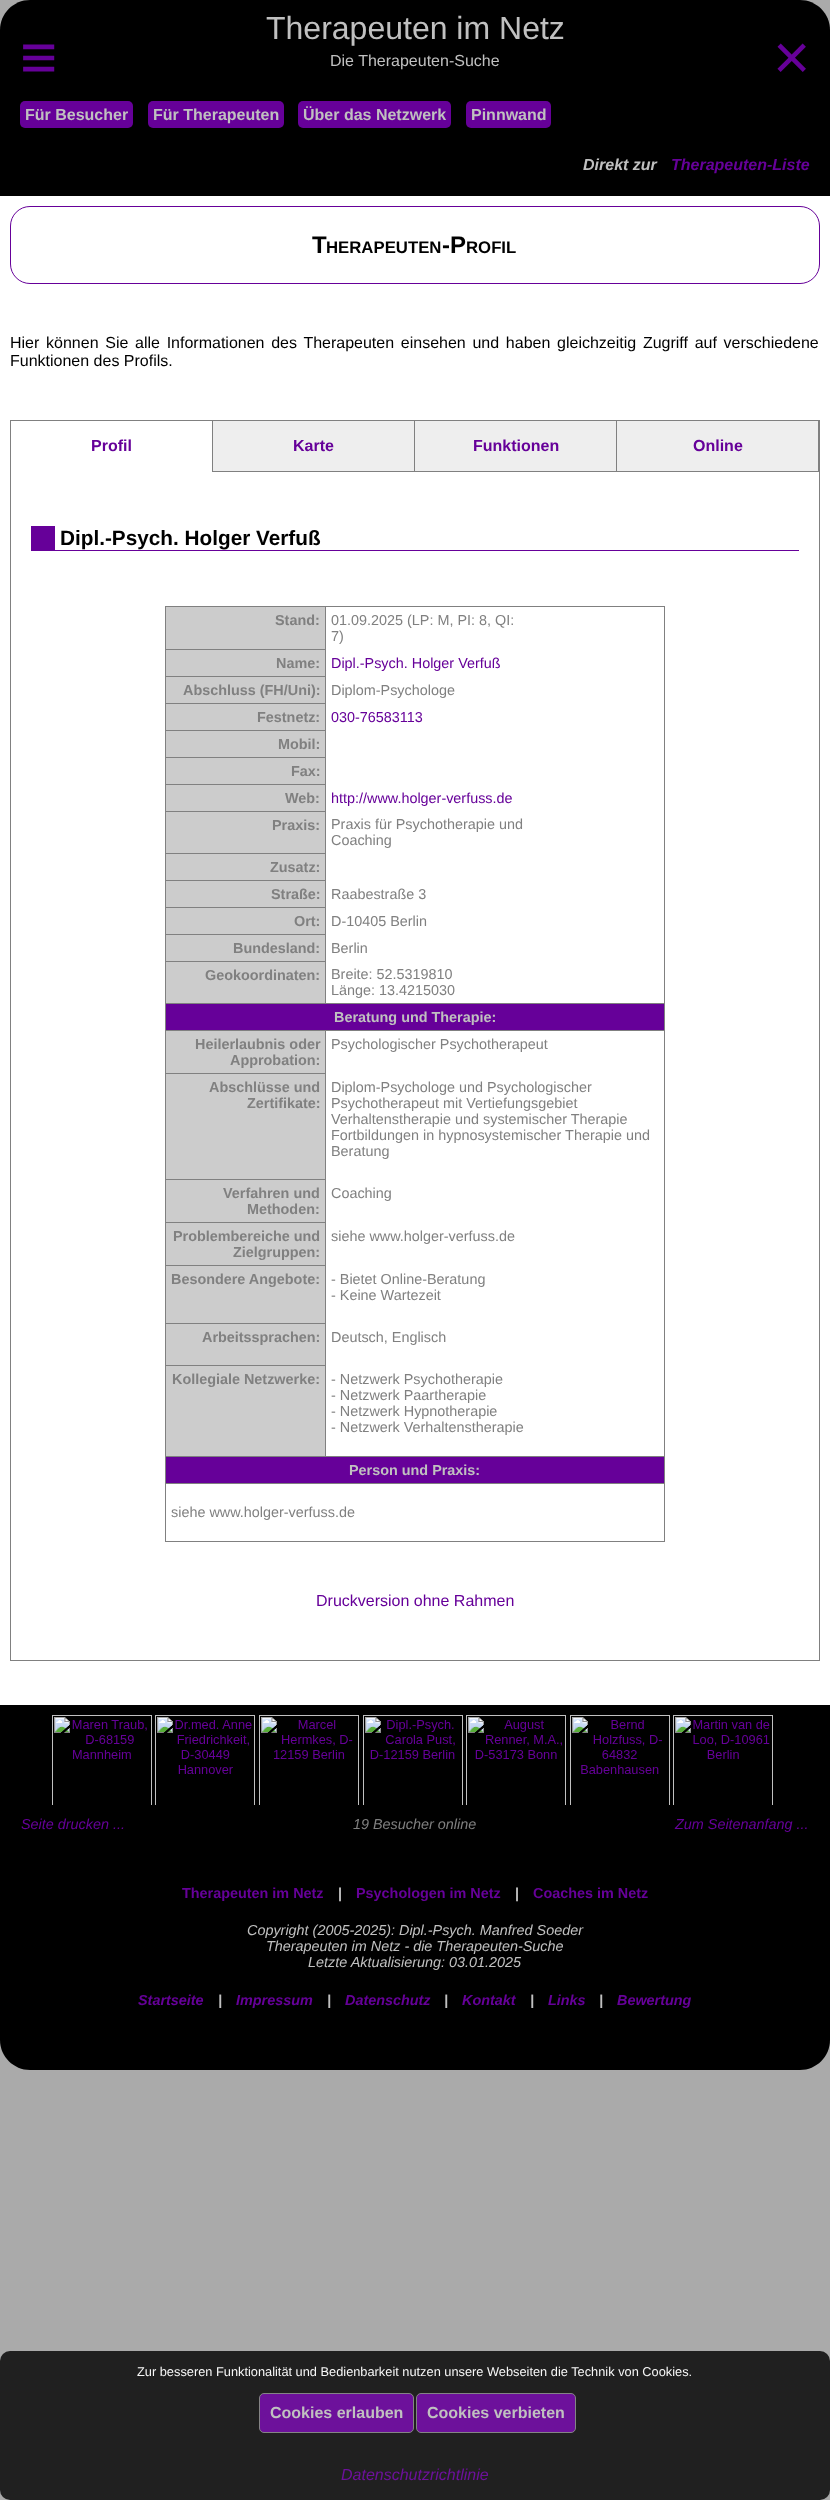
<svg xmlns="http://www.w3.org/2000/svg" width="830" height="2500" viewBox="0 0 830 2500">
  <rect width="100%" height="100%" fill="rgb(170,170,170)"/>
  <path d="M30 0H800C816.5 0 830 13.5 830 30V196H0V30C0 13.5 13.5 0 30 0Z" fill="rgb(0,0,0)"/>
  <text x="266" y="39" font-family="Liberation Sans" font-size="32" fill="rgb(192,192,192)">Therapeuten im Netz</text>
  <text x="20" y="79" font-family="Liberation Sans" font-size="64" fill="rgb(102,0,153)">≡</text>
  <text x="330" y="66" font-family="Liberation Sans" font-size="16" fill="rgb(192,192,192)">Die Therapeuten-Suche</text>
  <text x="773" y="79" font-family="Liberation Sans" font-size="64" fill="rgb(102,0,153)">×</text>
  <rect x="20" y="101" width="113" height="27" rx="5" fill="rgb(102,0,153)"/>
  <text x="25" y="120" font-family="Liberation Sans" font-size="16" font-weight="bold" fill="rgb(192,192,192)">Für Besucher</text>
  <rect x="148" y="101" width="136" height="27" rx="5" fill="rgb(102,0,153)"/>
  <text x="153" y="120" font-family="Liberation Sans" font-size="16" font-weight="bold" fill="rgb(192,192,192)">Für Therapeuten</text>
  <rect x="298" y="101" width="153" height="27" rx="5" fill="rgb(102,0,153)"/>
  <text x="303" y="120" font-family="Liberation Sans" font-size="16" font-weight="bold" fill="rgb(192,192,192)">Über das Netzwerk</text>
  <rect x="466" y="101" width="85" height="27" rx="5" fill="rgb(102,0,153)"/>
  <text x="471" y="120" font-family="Liberation Sans" font-size="16" font-weight="bold" fill="rgb(192,192,192)">Pinnwand</text>
  <text x="583" y="170" font-family="Liberation Sans" font-size="16" font-weight="bold" font-style="italic" fill="rgb(192,192,192)">Direkt zur</text>
  <text x="671" y="170" font-family="Liberation Sans" font-size="16" font-weight="bold" font-style="italic" fill="rgb(102,0,153)">Therapeuten-Liste</text>
  <rect x="0" y="196" width="830" height="1509" fill="rgb(255,255,255)"/>
  <rect x="10.5" y="206.5" width="809" height="77" rx="19.5" fill="none" stroke="rgb(102,0,153)"/>
  <text x="312" y="253" font-family="Liberation Sans" font-size="24" font-weight="bold" fill="rgb(0,0,0)">T</text>
  <text x="326" y="253" font-family="Liberation Sans" font-size="16.75" font-weight="bold" fill="rgb(0,0,0)">HERAPEUTEN</text>
  <text x="442" y="253" font-family="Liberation Sans" font-size="24" font-weight="bold" fill="rgb(0,0,0)">-P</text>
  <text x="466" y="253" font-family="Liberation Sans" font-size="16.75" font-weight="bold" fill="rgb(0,0,0)">ROFIL</text>
  <g font-family="Liberation Sans" font-size="16" fill="rgb(0,0,0)">
    <text>
      <tspan x="10" y="348" word-spacing="2.25">Hier können Sie alle Informationen des Therapeuten einsehen und haben gleichzeitig Zugriff auf verschiedene</tspan>
      <tspan x="10" y="366">Funktionen des Profils.</tspan>
    </text>
  </g>
  <rect x="10.5" y="420.5" width="809" height="1240" fill="none" stroke="rgb(128,128,128)"/>
  <rect x="818" y="421" width="1" height="51" fill="rgb(128,128,128)"/>
  <rect x="616" y="471" width="203" height="1" fill="rgb(128,128,128)"/>
  <rect x="616" y="421" width="1" height="51" fill="rgb(128,128,128)"/>
  <rect x="414" y="471" width="203" height="1" fill="rgb(128,128,128)"/>
  <rect x="414" y="421" width="1" height="51" fill="rgb(128,128,128)"/>
  <rect x="212" y="471" width="203" height="1" fill="rgb(128,128,128)"/>
  <rect x="212" y="421" width="1" height="51" fill="rgb(128,128,128)"/>
  <text x="91" y="451" font-family="Liberation Sans" font-size="16" font-weight="bold" fill="rgb(102,0,153)">Profil</text>
  <rect x="213" y="421" width="201" height="50" fill="rgb(238,238,238)"/>
  <text x="293" y="451" font-family="Liberation Sans" font-size="16" font-weight="bold" fill="rgb(102,0,153)">Karte</text>
  <rect x="415" y="421" width="201" height="50" fill="rgb(238,238,238)"/>
  <text x="473" y="451" font-family="Liberation Sans" font-size="16" font-weight="bold" fill="rgb(102,0,153)">Funktionen</text>
  <rect x="617" y="421" width="201" height="50" fill="rgb(238,238,238)"/>
  <text x="693" y="451" font-family="Liberation Sans" font-size="16" font-weight="bold" fill="rgb(102,0,153)">Online</text>
  <rect x="55" y="550" width="744" height="1" fill="rgb(102,0,153)"/>
  <rect x="31" y="526" width="24" height="25" fill="rgb(102,0,153)"/>
  <text x="60" y="545" font-family="Liberation Sans" font-size="20.75" font-weight="bold" fill="rgb(0,0,0)">Dipl.-Psych. Holger Verfuß</text>
  <rect x="165" y="606" width="500" height="1" fill="rgb(128,128,128)"/>
  <rect x="664" y="606" width="1" height="936" fill="rgb(128,128,128)"/>
  <rect x="165" y="1541" width="500" height="1" fill="rgb(128,128,128)"/>
  <rect x="165" y="606" width="1" height="936" fill="rgb(128,128,128)"/>
  <rect x="166" y="607" width="159" height="42" fill="rgb(204,204,204)"/>
  <text x="275" y="625" font-family="Liberation Sans" font-size="14.4" font-weight="bold" fill="rgb(128,128,128)">Stand:</text>
  <g font-family="Liberation Sans" font-size="14.4" fill="rgb(128,128,128)">
    <text>
      <tspan x="331" y="625">01.09.2025 (LP: M, PI: 8, QI:</tspan>
      <tspan x="331" y="641">7)</tspan>
    </text>
  </g>
  <rect x="166" y="650" width="159" height="26" fill="rgb(204,204,204)"/>
  <rect x="165" y="649" width="161" height="1" fill="rgb(128,128,128)"/>
  <rect x="165" y="676" width="161" height="1" fill="rgb(128,128,128)"/>
  <rect x="165" y="703" width="161" height="1" fill="rgb(128,128,128)"/>
  <rect x="165" y="730" width="161" height="1" fill="rgb(128,128,128)"/>
  <rect x="165" y="757" width="161" height="1" fill="rgb(128,128,128)"/>
  <rect x="165" y="784" width="161" height="1" fill="rgb(128,128,128)"/>
  <rect x="165" y="811" width="161" height="1" fill="rgb(128,128,128)"/>
  <rect x="165" y="853" width="161" height="1" fill="rgb(128,128,128)"/>
  <rect x="165" y="880" width="161" height="1" fill="rgb(128,128,128)"/>
  <rect x="165" y="907" width="161" height="1" fill="rgb(128,128,128)"/>
  <rect x="165" y="934" width="161" height="1" fill="rgb(128,128,128)"/>
  <rect x="165" y="961" width="161" height="1" fill="rgb(128,128,128)"/>
  <rect x="165" y="1003" width="500" height="1" fill="rgb(128,128,128)"/>
  <rect x="325" y="961" width="1" height="43" fill="rgb(128,128,128)"/>
  <rect x="325" y="934" width="1" height="28" fill="rgb(128,128,128)"/>
  <rect x="325" y="907" width="1" height="28" fill="rgb(128,128,128)"/>
  <rect x="325" y="880" width="1" height="28" fill="rgb(128,128,128)"/>
  <rect x="325" y="853" width="1" height="28" fill="rgb(128,128,128)"/>
  <rect x="325" y="811" width="1" height="43" fill="rgb(128,128,128)"/>
  <rect x="325" y="784" width="1" height="28" fill="rgb(128,128,128)"/>
  <rect x="325" y="757" width="1" height="28" fill="rgb(128,128,128)"/>
  <rect x="325" y="730" width="1" height="28" fill="rgb(128,128,128)"/>
  <rect x="325" y="703" width="1" height="28" fill="rgb(128,128,128)"/>
  <rect x="325" y="676" width="1" height="28" fill="rgb(128,128,128)"/>
  <rect x="325" y="606" width="1" height="71" fill="rgb(128,128,128)"/>
  <text x="276" y="668" font-family="Liberation Sans" font-size="14.4" font-weight="bold" fill="rgb(128,128,128)">Name:</text>
  <text x="331" y="668" font-family="Liberation Sans" font-size="14.4" fill="rgb(102,0,153)">Dipl.-Psych. Holger Verfuß</text>
  <rect x="166" y="677" width="159" height="26" fill="rgb(204,204,204)"/>
  <text x="183" y="695" font-family="Liberation Sans" font-size="14.4" font-weight="bold" fill="rgb(128,128,128)">Abschluss (FH/Uni):</text>
  <text x="331" y="695" font-family="Liberation Sans" font-size="14.4" fill="rgb(128,128,128)">Diplom-Psychologe</text>
  <rect x="166" y="704" width="159" height="26" fill="rgb(204,204,204)"/>
  <text x="257" y="722" font-family="Liberation Sans" font-size="14.4" font-weight="bold" fill="rgb(128,128,128)">Festnetz:</text>
  <text x="331" y="722" font-family="Liberation Sans" font-size="14.4" fill="rgb(102,0,153)">030-76583113</text>
  <rect x="166" y="731" width="159" height="26" fill="rgb(204,204,204)"/>
  <text x="278" y="749" font-family="Liberation Sans" font-size="14.4" font-weight="bold" fill="rgb(128,128,128)">Mobil:</text>
  <rect x="166" y="758" width="159" height="26" fill="rgb(204,204,204)"/>
  <text x="291" y="776" font-family="Liberation Sans" font-size="14.4" font-weight="bold" fill="rgb(128,128,128)">Fax:</text>
  <rect x="166" y="785" width="159" height="26" fill="rgb(204,204,204)"/>
  <text x="285" y="803" font-family="Liberation Sans" font-size="14.4" font-weight="bold" fill="rgb(128,128,128)">Web:</text>
  <text x="331" y="803" font-family="Liberation Sans" font-size="14.4" fill="rgb(102,0,153)">http://www.holger-verfuss.de</text>
  <rect x="166" y="812" width="159" height="41" fill="rgb(204,204,204)"/>
  <text x="272" y="830" font-family="Liberation Sans" font-size="14.4" font-weight="bold" fill="rgb(128,128,128)">Praxis:</text>
  <g font-family="Liberation Sans" font-size="14.4" fill="rgb(128,128,128)">
    <text>
      <tspan x="331" y="829">Praxis für Psychotherapie und</tspan>
      <tspan x="331" y="845">Coaching</tspan>
    </text>
  </g>
  <rect x="166" y="854" width="159" height="26" fill="rgb(204,204,204)"/>
  <text x="270" y="872" font-family="Liberation Sans" font-size="14.4" font-weight="bold" fill="rgb(128,128,128)">Zusatz:</text>
  <rect x="166" y="881" width="159" height="26" fill="rgb(204,204,204)"/>
  <text x="271" y="899" font-family="Liberation Sans" font-size="14.4" font-weight="bold" fill="rgb(128,128,128)">Straße:</text>
  <text x="331" y="899" font-family="Liberation Sans" font-size="14.4" fill="rgb(128,128,128)">Raabestraße 3</text>
  <rect x="166" y="908" width="159" height="26" fill="rgb(204,204,204)"/>
  <text x="294" y="926" font-family="Liberation Sans" font-size="14.4" font-weight="bold" fill="rgb(128,128,128)">Ort:</text>
  <text x="331" y="926" font-family="Liberation Sans" font-size="14.4" fill="rgb(128,128,128)">D-10405 Berlin</text>
  <rect x="166" y="935" width="159" height="26" fill="rgb(204,204,204)"/>
  <text x="233" y="953" font-family="Liberation Sans" font-size="14.4" font-weight="bold" fill="rgb(128,128,128)">Bundesland:</text>
  <text x="331" y="953" font-family="Liberation Sans" font-size="14.4" fill="rgb(128,128,128)">Berlin</text>
  <rect x="166" y="962" width="159" height="41" fill="rgb(204,204,204)"/>
  <text x="205" y="980" font-family="Liberation Sans" font-size="14.4" font-weight="bold" fill="rgb(128,128,128)">Geokoordinaten:</text>
  <g font-family="Liberation Sans" font-size="14.4" fill="rgb(128,128,128)">
    <text>
      <tspan x="331" y="979">Breite: 52.5319810</tspan>
      <tspan x="331" y="995">Länge: 13.4215030</tspan>
    </text>
  </g>
  <rect x="166" y="1004" width="498" height="26" fill="rgb(102,0,153)"/>
  <rect x="165" y="1073" width="161" height="1" fill="rgb(128,128,128)"/>
  <rect x="165" y="1179" width="161" height="1" fill="rgb(128,128,128)"/>
  <rect x="165" y="1222" width="161" height="1" fill="rgb(128,128,128)"/>
  <rect x="165" y="1265" width="161" height="1" fill="rgb(128,128,128)"/>
  <rect x="165" y="1323" width="161" height="1" fill="rgb(128,128,128)"/>
  <rect x="165" y="1365" width="161" height="1" fill="rgb(128,128,128)"/>
  <rect x="165" y="1456" width="500" height="1" fill="rgb(128,128,128)"/>
  <rect x="325" y="1365" width="1" height="92" fill="rgb(128,128,128)"/>
  <rect x="325" y="1323" width="1" height="43" fill="rgb(128,128,128)"/>
  <rect x="325" y="1265" width="1" height="59" fill="rgb(128,128,128)"/>
  <rect x="325" y="1222" width="1" height="44" fill="rgb(128,128,128)"/>
  <rect x="325" y="1179" width="1" height="44" fill="rgb(128,128,128)"/>
  <rect x="325" y="1030" width="1" height="150" fill="rgb(128,128,128)"/>
  <rect x="165" y="1030" width="500" height="1" fill="rgb(128,128,128)"/>
  <text x="334" y="1022" font-family="Liberation Sans" font-size="14.4" font-weight="bold" fill="rgb(192,192,192)">Beratung und Therapie:</text>
  <rect x="166" y="1031" width="159" height="42" fill="rgb(204,204,204)"/>
  <g font-family="Liberation Sans" font-size="14.4" font-weight="bold" fill="rgb(128,128,128)">
    <text x="195" y="1049">Heilerlaubnis oder</text>
    <text x="230" y="1065">Approbation:</text>
  </g>
  <text x="331" y="1049" font-family="Liberation Sans" font-size="14.4" fill="rgb(128,128,128)">Psychologischer Psychotherapeut</text>
  <rect x="166" y="1074" width="159" height="105" fill="rgb(204,204,204)"/>
  <g font-family="Liberation Sans" font-size="14.4" font-weight="bold" fill="rgb(128,128,128)">
    <text x="209" y="1092">Abschlüsse und</text>
    <text x="247" y="1108">Zertifikate:</text>
  </g>
  <g font-family="Liberation Sans" font-size="14.4" fill="rgb(128,128,128)">
    <text>
      <tspan x="331" y="1092">Diplom-Psychologe und Psychologischer</tspan>
      <tspan x="331" y="1108">Psychotherapeut mit Vertiefungsgebiet</tspan>
      <tspan x="331" y="1124">Verhaltenstherapie und systemischer Therapie</tspan>
      <tspan x="331" y="1140">Fortbildungen in hypnosystemischer Therapie und</tspan>
      <tspan x="331" y="1156">Beratung</tspan>
    </text>
  </g>
  <rect x="166" y="1180" width="159" height="42" fill="rgb(204,204,204)"/>
  <g font-family="Liberation Sans" font-size="14.4" font-weight="bold" fill="rgb(128,128,128)">
    <text x="223" y="1198">Verfahren und</text>
    <text x="247" y="1214">Methoden:</text>
  </g>
  <text x="331" y="1198" font-family="Liberation Sans" font-size="14.4" fill="rgb(128,128,128)">Coaching</text>
  <rect x="166" y="1223" width="159" height="42" fill="rgb(204,204,204)"/>
  <g font-family="Liberation Sans" font-size="14.4" font-weight="bold" fill="rgb(128,128,128)">
    <text x="173" y="1241">Problembereiche und</text>
    <text x="233" y="1257">Zielgruppen:</text>
  </g>
  <text x="331" y="1241" font-family="Liberation Sans" font-size="14.4" fill="rgb(128,128,128)">siehe www.holger-verfuss.de</text>
  <rect x="166" y="1266" width="159" height="57" fill="rgb(204,204,204)"/>
  <text x="171" y="1284" font-family="Liberation Sans" font-size="14.4" font-weight="bold" fill="rgb(128,128,128)">Besondere Angebote:</text>
  <g font-family="Liberation Sans" font-size="14.4" fill="rgb(128,128,128)">
    <text>
      <tspan x="331" y="1284">- Bietet Online-Beratung</tspan>
      <tspan x="331" y="1300">- Keine Wartezeit</tspan>
    </text>
  </g>
  <rect x="166" y="1324" width="159" height="41" fill="rgb(204,204,204)"/>
  <text x="202" y="1342" font-family="Liberation Sans" font-size="14.4" font-weight="bold" fill="rgb(128,128,128)">Arbeitssprachen:</text>
  <text x="331" y="1342" font-family="Liberation Sans" font-size="14.4" fill="rgb(128,128,128)">Deutsch, Englisch</text>
  <rect x="166" y="1366" width="159" height="90" fill="rgb(204,204,204)"/>
  <text x="172" y="1384" font-family="Liberation Sans" font-size="14.4" font-weight="bold" fill="rgb(128,128,128)">Kollegiale Netzwerke:</text>
  <g font-family="Liberation Sans" font-size="14.4" fill="rgb(128,128,128)">
    <text>
      <tspan x="331" y="1384">- Netzwerk Psychotherapie</tspan>
      <tspan x="331" y="1400">- Netzwerk Paartherapie</tspan>
      <tspan x="331" y="1416">- Netzwerk Hypnotherapie</tspan>
      <tspan x="331" y="1432">- Netzwerk Verhaltenstherapie</tspan>
    </text>
  </g>
  <rect x="166" y="1457" width="498" height="26" fill="rgb(102,0,153)"/>
  <rect x="165" y="1483" width="500" height="1" fill="rgb(128,128,128)"/>
  <text x="349" y="1475" font-family="Liberation Sans" font-size="14.4" font-weight="bold" fill="rgb(192,192,192)">Person und Praxis:</text>
  <text x="171" y="1517" font-family="Liberation Sans" font-size="14.4" fill="rgb(128,128,128)">siehe www.holger-verfuss.de</text>
  <text x="316" y="1606" font-family="Liberation Sans" font-size="16" fill="rgb(102,0,153)">Druckversion ohne Rahmen</text>
  <image x="0" y="1705" width="830" height="100" href="pic1.png"/>
  <path d="M0 1805H830V2040C830 2056.5 816.5 2070 800 2070H30C13.5 2070 0 2056.5 0 2040Z" fill="rgb(0,0,0)"/>
  <text x="21" y="1829" font-family="Liberation Sans" font-size="14.4" font-style="italic" fill="rgb(102,0,153)">Seite drucken ...</text>
  <text x="353" y="1829" font-family="Liberation Sans" font-size="14.4" font-style="italic" fill="rgb(128,128,128)">19 Besucher online</text>
  <text x="675" y="1829" font-family="Liberation Sans" font-size="14.4" font-style="italic" fill="rgb(102,0,153)">Zum Seitenanfang ...</text>
  <text x="182" y="1898" font-family="Liberation Sans" font-size="14.4" font-weight="bold" fill="rgb(102,0,153)">Therapeuten im Netz</text>
  <text x="338" y="1898" font-family="Liberation Sans" font-size="14.4" font-weight="bold" fill="rgb(192,192,192)">|</text>
  <text x="356" y="1898" font-family="Liberation Sans" font-size="14.4" font-weight="bold" fill="rgb(102,0,153)">Psychologen im Netz</text>
  <text x="515" y="1898" font-family="Liberation Sans" font-size="14.4" font-weight="bold" fill="rgb(192,192,192)">|</text>
  <text x="533" y="1898" font-family="Liberation Sans" font-size="14.4" font-weight="bold" fill="rgb(102,0,153)">Coaches im Netz</text>
  <g font-family="Liberation Sans" font-size="14.4" font-style="italic" fill="rgb(192,192,192)">
    <text x="247" y="1935">Copyright (2005-2025): Dipl.-Psych. Manfred Soeder</text>
    <text x="266" y="1951">Therapeuten im Netz - die Therapeuten-Suche</text>
    <text x="308" y="1967">Letzte Aktualisierung: 03.01.2025</text>
  </g>
  <text x="138" y="2005" font-family="Liberation Sans" font-size="14.4" font-weight="bold" font-style="italic" fill="rgb(102,0,153)">Startseite</text>
  <text x="218" y="2005" font-family="Liberation Sans" font-size="14.4" font-weight="bold" font-style="italic" fill="rgb(192,192,192)">|</text>
  <text x="236" y="2005" font-family="Liberation Sans" font-size="14.4" font-weight="bold" font-style="italic" fill="rgb(102,0,153)">Impressum</text>
  <text x="327" y="2005" font-family="Liberation Sans" font-size="14.4" font-weight="bold" font-style="italic" fill="rgb(192,192,192)">|</text>
  <text x="345" y="2005" font-family="Liberation Sans" font-size="14.4" font-weight="bold" font-style="italic" fill="rgb(102,0,153)">Datenschutz</text>
  <text x="444" y="2005" font-family="Liberation Sans" font-size="14.4" font-weight="bold" font-style="italic" fill="rgb(192,192,192)">|</text>
  <text x="462" y="2005" font-family="Liberation Sans" font-size="14.4" font-weight="bold" font-style="italic" fill="rgb(102,0,153)">Kontakt</text>
  <text x="530" y="2005" font-family="Liberation Sans" font-size="14.4" font-weight="bold" font-style="italic" fill="rgb(192,192,192)">|</text>
  <text x="548" y="2005" font-family="Liberation Sans" font-size="14.4" font-weight="bold" font-style="italic" fill="rgb(102,0,153)">Links</text>
  <text x="599" y="2005" font-family="Liberation Sans" font-size="14.4" font-weight="bold" font-style="italic" fill="rgb(192,192,192)">|</text>
  <text x="617" y="2005" font-family="Liberation Sans" font-size="14.4" font-weight="bold" font-style="italic" fill="rgb(102,0,153)">Bewertung</text>
  <rect x="0" y="2351" width="830" height="149" rx="10" fill="rgb(32,32,32)"/>
  <text x="137" y="2376" font-family="Liberation Sans" font-size="12.8" fill="rgb(247,247,247)">Zur besseren Funktionalität und Bedienbarkeit nutzen unsere Webseiten die Technik von Cookies.</text>
  <rect x="259.5" y="2393.5" width="154" height="39" rx="4.5" fill="rgb(109,17,155)" stroke="rgb(132,132,132)"/>
  <text x="270" y="2418" font-family="Liberation Sans" font-size="16" font-weight="bold" fill="rgb(192,192,192)">Cookies erlauben</text>
  <rect x="416.5" y="2393.5" width="159" height="39" rx="4.5" fill="rgb(109,17,155)" stroke="rgb(132,132,132)"/>
  <text x="427" y="2418" font-family="Liberation Sans" font-size="16" font-weight="bold" fill="rgb(192,192,192)">Cookies verbieten</text>
  <text x="341" y="2480" font-family="Liberation Sans" font-size="16" font-style="italic" fill="rgb(109,17,155)">Datenschutzrichtlinie</text>
</svg>
